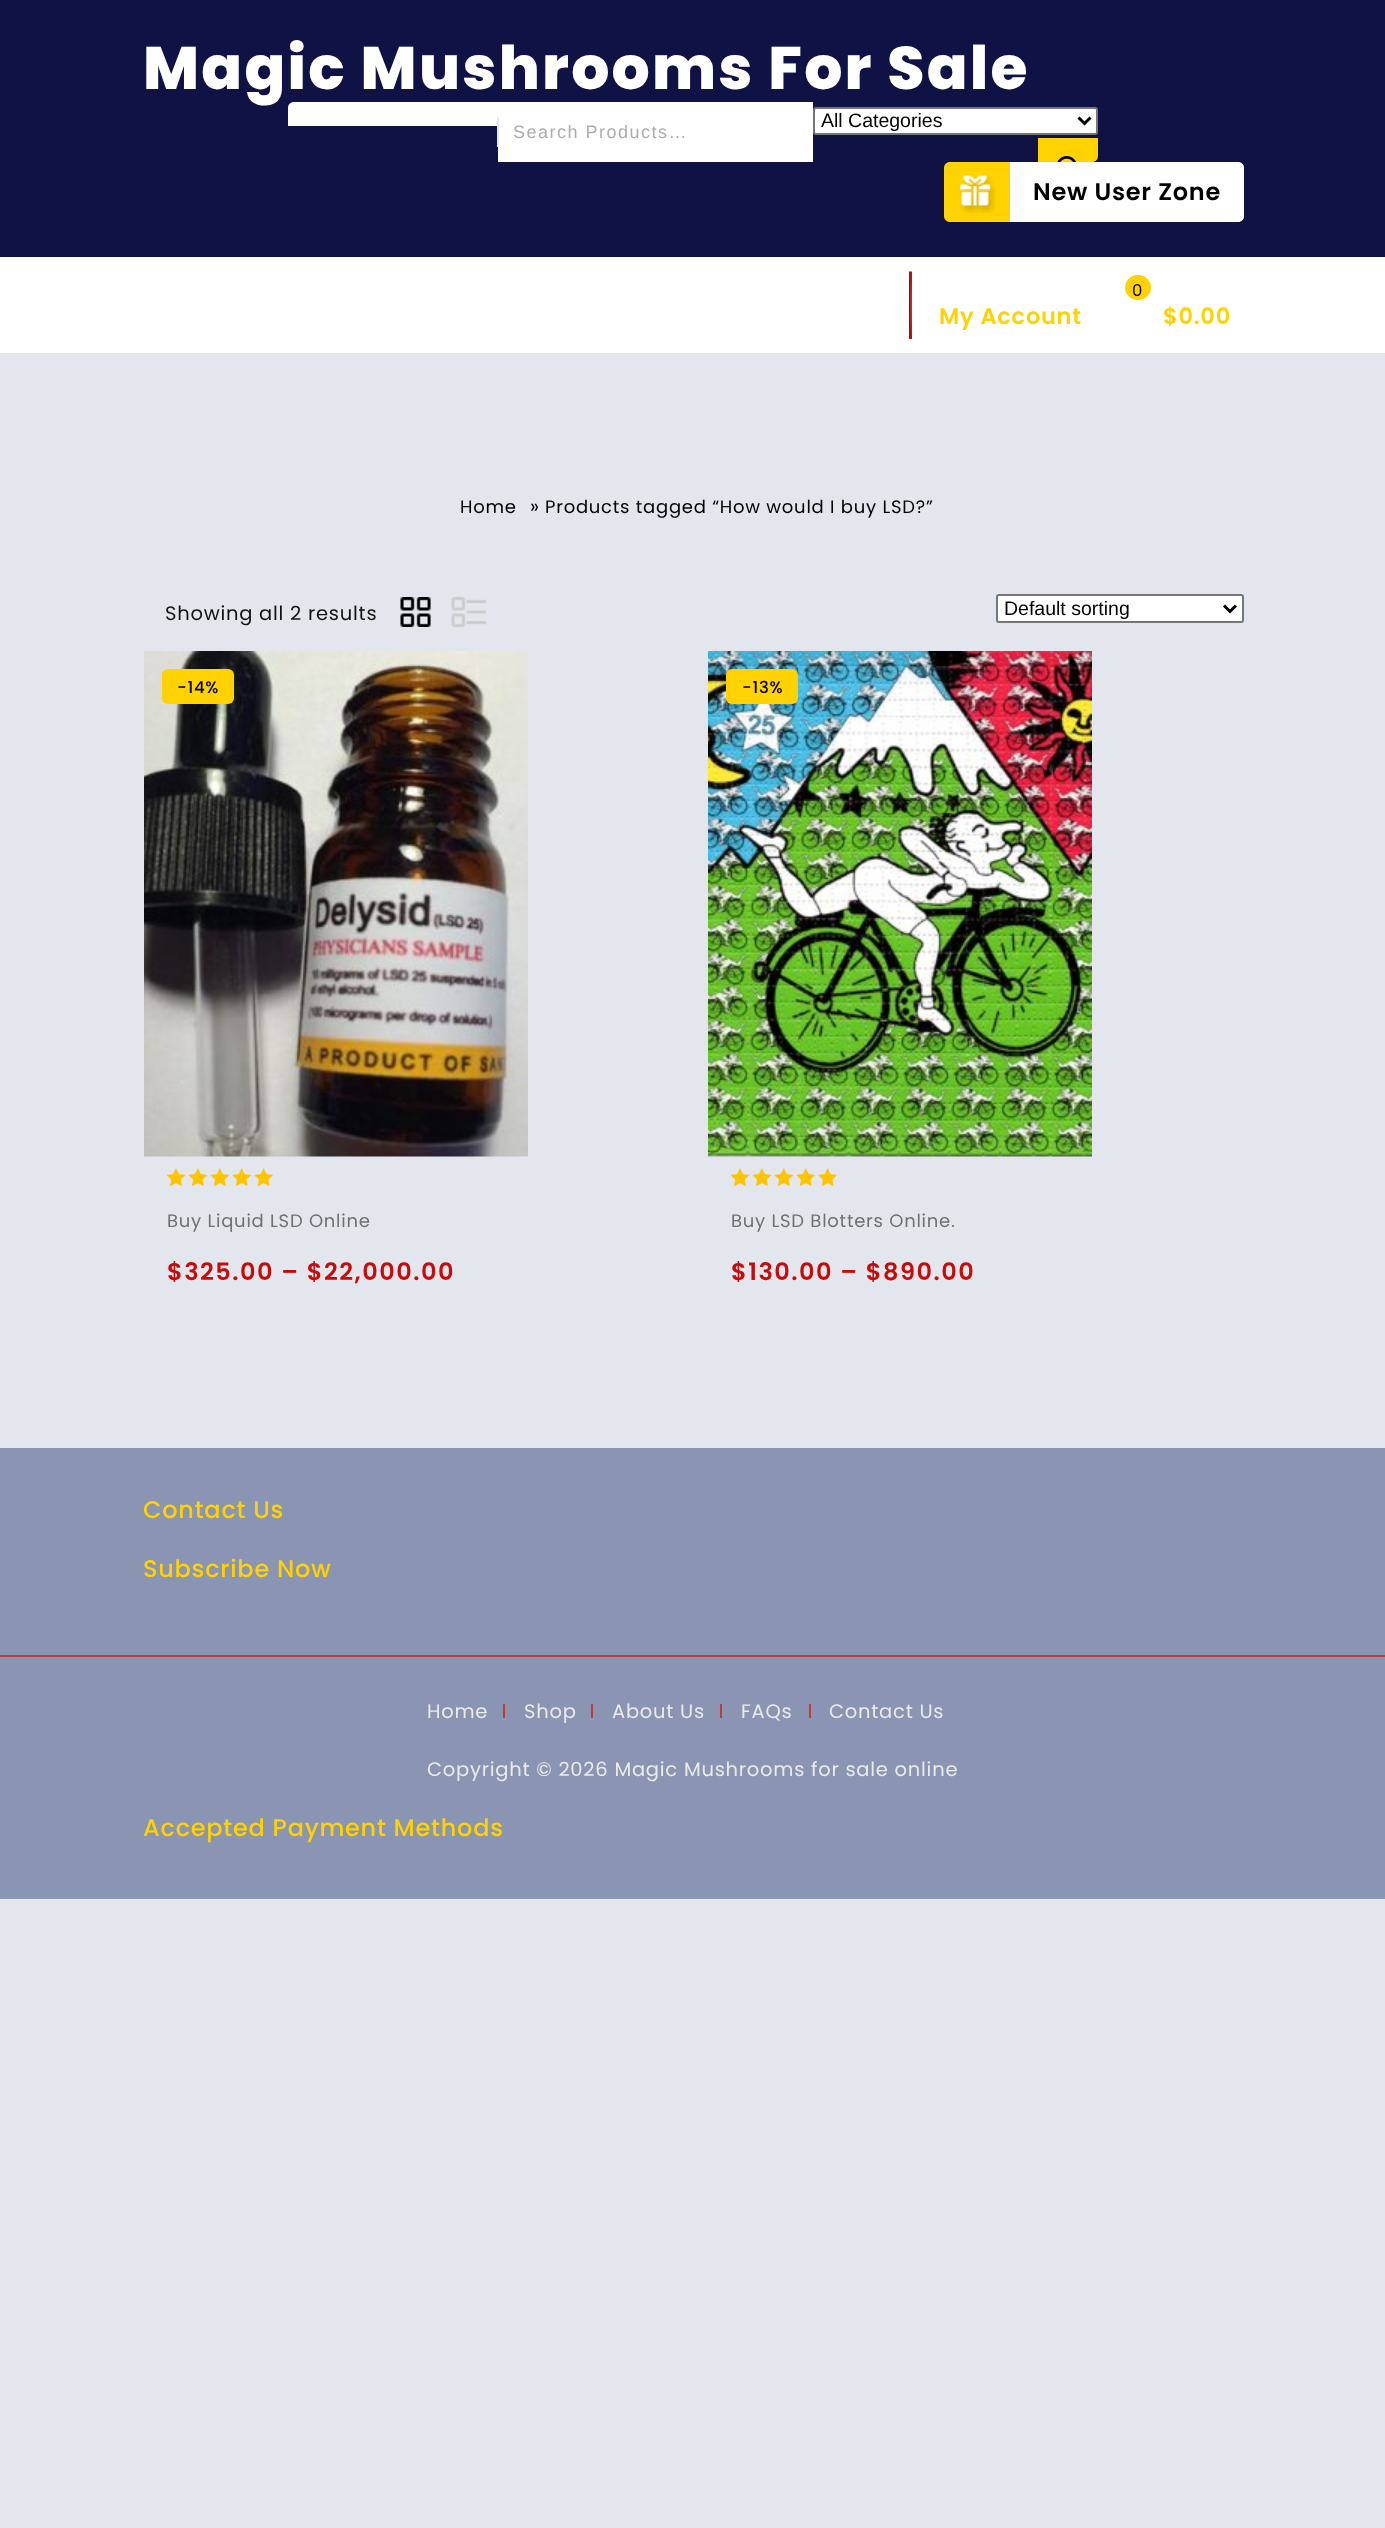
<svg xmlns="http://www.w3.org/2000/svg" width="1385" height="2528" viewBox="0 0 1385 2528">
  <rect width="100%" height="100%" fill="rgb(227,231,237)"/>
  <rect x="0" y="0" width="1385" height="257" fill="rgb(16,18,69)"/>
  <text x="143" y="89" font-family="Poppins" font-size="60" font-weight="800" letter-spacing="2.25" fill="rgb(255,255,255)">Magic Mushrooms For Sale</text>
  <path d="M294 102H498V126H288V108C288 104.5 290.5 102 294 102Z" fill="rgb(255,255,255)"/>
  <rect x="498" y="102" width="315" height="60" fill="rgb(255,255,255)"/>
  <rect x="497" y="117" width="2" height="30" fill="rgb(230,230,230)"/>
  <text x="513" y="138" font-family="Liberation Sans" font-size="18" letter-spacing="1.5" fill="rgb(173,173,173)">Search Products…</text>
  <rect x="814" y="108" width="283" height="26" rx="2" fill="rgb(255,255,255)" stroke="rgb(118,118,118)" stroke-width="2"/>
  <path d="M1078.5 117.5L1084.5 123.5L1090.5 117.5" fill="none" stroke="rgb(0,0,0)" stroke-width="3"/>
  <text x="821" y="127" font-family="Liberation Sans" font-size="19.5" fill="rgb(0,0,0)">All Categories</text>
  <path d="M1038 138H1098V156C1098 159.5 1095.5 162 1092 162H1038Z" fill="rgb(255,210,0)"/>
  <image x="1057" y="156" width="19" height="6" href="pic1.png"/>
  <path d="M950 162H1011V222H950C946.5 222 944 219.5 944 216V168C944 164.5 946.5 162 950 162Z" fill="rgb(255,210,0)"/>
  <image x="959" y="175" width="37" height="38" href="pic2.png"/>
  <rect x="1010" y="162" width="1" height="60" fill="rgb(255,255,255)"/>
  <path d="M1011 162H1238C1241.5 162 1244 164.5 1244 168V216C1244 219.5 1241.5 222 1238 222H1011Z" fill="rgb(255,255,255)"/>
  <text x="1033" y="200" font-family="Poppins" font-size="24" font-weight="600" letter-spacing="0.75" fill="rgb(0,0,0)">New User Zone</text>
  <rect x="0" y="257" width="1385" height="96" fill="rgb(255,255,255)"/>
  <image x="909" y="271" width="3" height="68" href="pic3.png"/>
  <text x="939" y="324" font-family="Poppins" font-size="22.5" font-weight="600" letter-spacing="0.75" fill="rgb(255,210,0)">My Account</text>
  <rect x="1125" y="275" width="26" height="25" rx="12.5" fill="rgb(255,210,0)"/>
  <text x="1132" y="296" font-family="Poppins" font-size="16.5" letter-spacing="0.75" fill="rgb(0,0,0)">0</text>
  <text x="1163" y="324" font-family="Poppins" font-size="22.5" font-weight="600" letter-spacing="0.75" fill="rgb(255,210,0)">$0.00</text>
  <text x="460" y="513" font-family="Poppins" font-size="18" letter-spacing="0.75" fill="rgb(0,0,0)">Home</text>
  <text x="530" y="513" font-family="Poppins" font-size="19.5" letter-spacing="0.75" fill="rgb(0,0,0)">»</text>
  <text x="545" y="513" font-family="Poppins" font-size="18" letter-spacing="0.75" fill="rgb(0,0,0)">Products tagged “How would I buy LSD?”</text>
  <text x="165" y="620" font-family="Poppins" font-size="19.5" letter-spacing="0.75" fill="rgb(18,18,18)">Showing all 2 results</text>
  <image x="400" y="597" width="31" height="30" href="pic4.png"/>
  <image x="451" y="597" width="35" height="31" href="pic5.png"/>
  <rect x="997" y="595" width="246" height="27" rx="2" fill="rgb(255,255,255)" stroke="rgb(118,118,118)" stroke-width="2"/>
  <path d="M1224 605.5L1230 611.5L1236 605.5" fill="none" stroke="rgb(0,0,0)" stroke-width="3"/>
  <text x="1004" y="615" font-family="Liberation Sans" font-size="19.5" fill="rgb(0,0,0)">Default sorting</text>
  <image x="144" y="651" width="384" height="506" href="pic6.png"/>
  <rect x="162" y="669" width="72" height="35" rx="6" fill="rgb(255,210,0)"/>
  <text x="177" y="693" font-family="Poppins" font-size="16.5" font-weight="500" letter-spacing="0.75" fill="rgb(0,0,0)">-14%</text>
  <image x="167" y="1168" width="106" height="18" href="pic7.png"/>
  <image x="167" y="1168" width="106" height="18" href="pic8.png"/>
  <text x="167" y="1227" font-family="Poppins" font-size="18" letter-spacing="0.75" fill="rgb(112,112,112)">Buy Liquid LSD Online</text>
  <text x="167" y="1280" font-family="Poppins" font-size="24" font-weight="600" letter-spacing="1.5" fill="rgb(199,10,10)">$325.00 – $22,000.00</text>
  <image x="708" y="651" width="384" height="506" href="pic9.png"/>
  <rect x="726" y="669" width="72" height="35" rx="6" fill="rgb(255,210,0)"/>
  <text x="742" y="693" font-family="Poppins" font-size="16.5" font-weight="500" letter-spacing="0.75" fill="rgb(0,0,0)">-13%</text>
  <image x="731" y="1168" width="106" height="18" href="pic7.png"/>
  <image x="731" y="1168" width="106" height="18" href="pic8.png"/>
  <text x="731" y="1227" font-family="Poppins" font-size="18" letter-spacing="0.75" fill="rgb(112,112,112)">Buy LSD Blotters Online.</text>
  <text x="731" y="1280" font-family="Poppins" font-size="24" font-weight="600" letter-spacing="1.5" fill="rgb(199,10,10)">$130.00 – $890.00</text>
  <rect x="0" y="1448" width="1385" height="451" fill="rgb(138,148,179)"/>
  <g font-family="Poppins" font-size="24" font-weight="500" letter-spacing="0.75" fill="rgb(255,210,0)">
    <text x="143" y="1518">Contact Us</text>
    <text x="143" y="1577">Subscribe Now</text>
  </g>
  <rect x="0" y="1655" width="1385" height="2" fill="rgb(194,58,58)"/>
  <text x="427" y="1718" font-family="Poppins" font-size="19.5" letter-spacing="0.75" fill="rgb(235,235,235)">Home</text>
  <rect x="503" y="1704" width="2" height="14" fill="rgb(194,58,58)"/>
  <text x="524" y="1718" font-family="Poppins" font-size="19.5" letter-spacing="0.75" fill="rgb(235,235,235)">Shop</text>
  <rect x="591" y="1704" width="2" height="14" fill="rgb(194,58,58)"/>
  <text x="612" y="1718" font-family="Poppins" font-size="19.5" letter-spacing="0.75" fill="rgb(235,235,235)">About Us</text>
  <rect x="720" y="1704" width="2" height="14" fill="rgb(194,58,58)"/>
  <text x="741" y="1718" font-family="Poppins" font-size="19.5" letter-spacing="0.75" fill="rgb(235,235,235)">FAQs</text>
  <rect x="809" y="1704" width="2" height="14" fill="rgb(194,58,58)"/>
  <g font-family="Poppins" font-size="19.5" letter-spacing="0.75" fill="rgb(235,235,235)">
    <text x="829" y="1718">Contact Us</text>
    <text x="427" y="1776">Copyright © 2026 Magic Mushrooms for sale online</text>
  </g>
  <text x="143" y="1836" font-family="Poppins" font-size="24" font-weight="500" letter-spacing="0.75" fill="rgb(255,210,0)">Accepted Payment Methods</text>
</svg>
